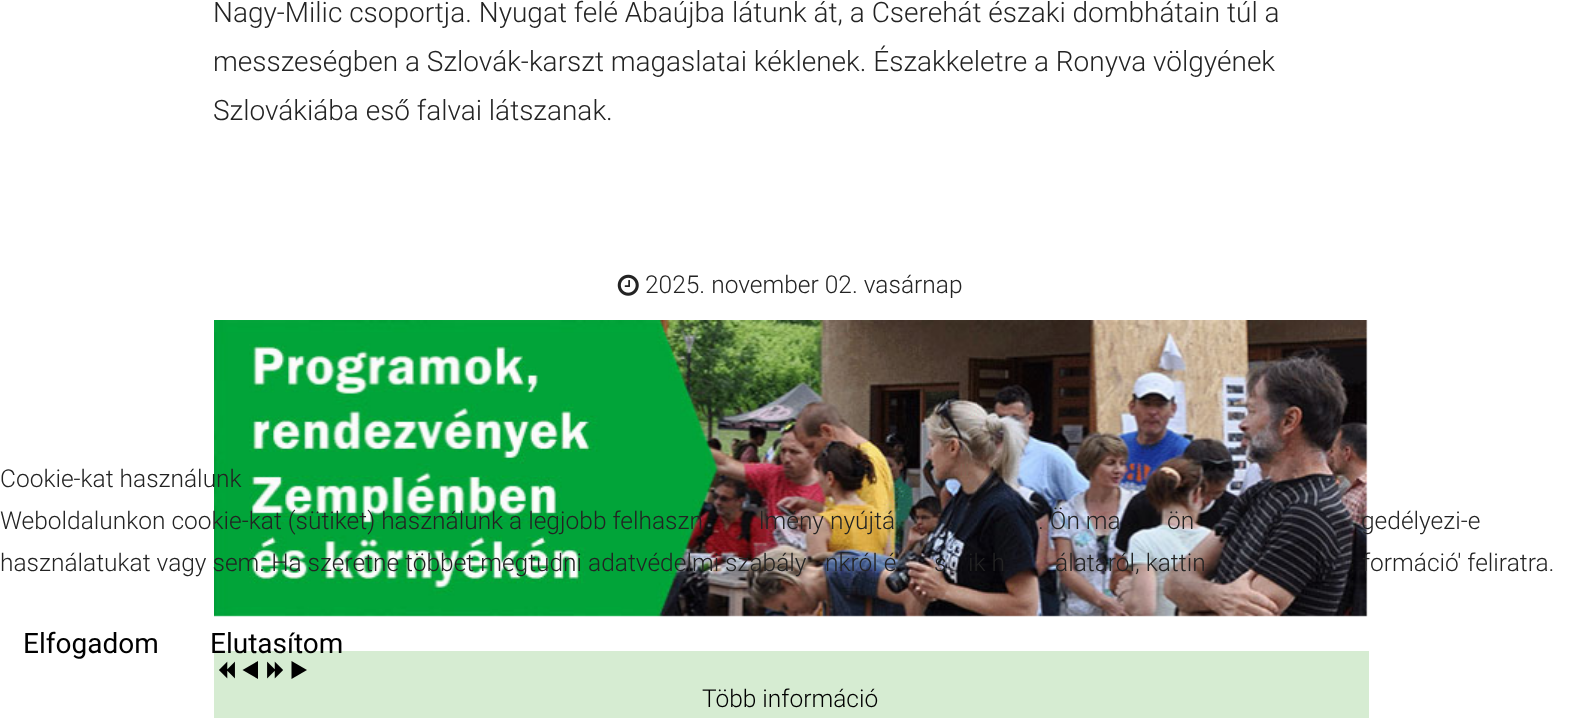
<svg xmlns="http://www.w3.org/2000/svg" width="1579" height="718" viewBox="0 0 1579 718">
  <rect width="100%" height="100%" fill="rgb(255,255,255)"/>
  <g font-family="Roboto" font-size="28" font-weight="300" fill="rgb(35,35,35)">
    <text>
      <tspan x="213" y="22">Nagy-Milic csoportja. Nyugat felé Abaújba látunk át, a Cserehát északi dombhátain túl a</tspan>
      <tspan x="213" y="71">messzeségben a Szlovák-karszt magaslatai kéklenek. Északkeletre a Ronyva völgyének</tspan>
      <tspan x="213" y="120">Szlovákiába eső falvai látszanak.</tspan>
    </text>
  </g>
  <image x="617" y="274" width="22" height="22" href="pic1.png"/>
  <text x="645" y="293" font-family="Roboto" font-size="24.5" font-weight="300" fill="rgb(35,35,35)">2025. november 02. vasárnap</text>
  <image x="214" y="320" width="1154" height="297" href="pic2.png"/>
  <rect x="214" y="651" width="1155" height="67" fill="rgb(214,236,210)"/>
  <image x="219" y="661" width="16" height="18" href="pic3.png"/>
  <path d="M258 679L242.5 670L258 661Z" fill="rgb(0,0,0)"/>
  <image x="267" y="661" width="16" height="18" href="pic4.png"/>
  <path d="M291.5 661L307 670L291.5 679Z" fill="rgb(0,0,0)"/>
  <g font-family="Roboto" font-size="24.5" font-weight="300" fill="rgb(35,35,35)">
    <text>
      <tspan x="0" y="487">Cookie-kat használunk</tspan>
      <tspan x="0" y="529">Weboldalunkon cookie-kat (sütiket) használunk a legjobb felhaszn</tspan>
    </text>
    <text x="759" y="529">lmény nyújtá</text>
    <text x="1038" y="529">. Ön ma</text>
    <text x="1167" y="529">ön</text>
    <text x="1361" y="529">gedélyezi-e</text>
    <text x="0" y="571">használatukat vagy sem. Ha szeretne többet megtudni adatvédelmi szabály</text>
    <text x="825" y="571">nkról é</text>
    <text x="934" y="571">s</text>
    <text x="968" y="571">ik h</text>
    <text x="1055" y="571">álatáról, kattin</text>
    <text x="1362" y="571">formáció' feliratra.</text>
  </g>
  <g font-family="Heebo" font-size="28" fill="rgb(0,0,0)">
    <text x="23" y="653">Elfogadom</text>
    <text x="210" y="653">Elutasítom</text>
  </g>
  <text x="702" y="707" font-family="Roboto" font-size="24.5" font-weight="300" fill="rgb(0,0,0)">Több információ</text>
</svg>
